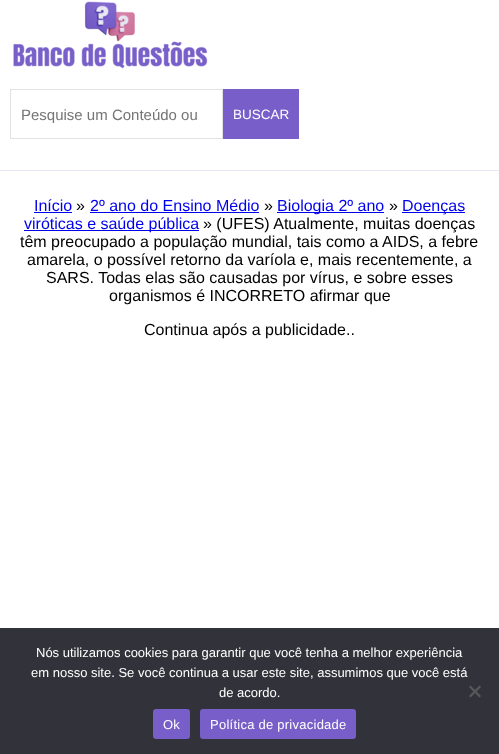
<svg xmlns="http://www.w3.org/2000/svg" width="499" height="754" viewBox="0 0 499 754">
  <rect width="100%" height="100%" fill="rgb(255,255,255)"/>
  <rect x="0" y="170" width="499" height="1" fill="rgb(233,228,246)"/>
  <image x="13" y="1" width="195" height="68" href="pic1.png"/>
  <rect x="10.5" y="89.5" width="212" height="49" fill="none" stroke="rgb(226,226,226)"/>
  <text x="21" y="120" font-family="Liberation Sans" font-size="15" fill="rgb(117,117,117)">Pesquise um Conteúdo ou</text>
  <rect x="223" y="89" width="76" height="50" fill="rgb(120,94,200)"/>
  <text x="233" y="119" font-family="Liberation Sans" font-size="13.5" fill="rgb(255,255,255)">BUSCAR</text>
  <text x="34" y="211" font-family="Liberation Sans" font-size="16" fill="rgb(0,0,238)">Início</text>
  <rect x="34" y="212" width="38" height="1" fill="rgb(0,0,238)"/>
  <text x="76" y="211" font-family="Liberation Sans" font-size="16" fill="rgb(0,0,0)">»</text>
  <text x="90" y="211" font-family="Liberation Sans" font-size="16" fill="rgb(0,0,238)">2º ano do Ensino Médio</text>
  <rect x="90" y="212" width="169" height="1" fill="rgb(0,0,238)"/>
  <text x="264" y="211" font-family="Liberation Sans" font-size="16" fill="rgb(0,0,0)">»</text>
  <rect x="277" y="212" width="107" height="1" fill="rgb(0,0,238)"/>
  <text x="277" y="211" font-family="Liberation Sans" font-size="16" fill="rgb(0,0,238)">Biologia 2º ano</text>
  <text x="389" y="211" font-family="Liberation Sans" font-size="16" fill="rgb(0,0,0)">»</text>
  <rect x="402" y="212" width="63" height="1" fill="rgb(0,0,238)"/>
  <text x="402" y="211" font-family="Liberation Sans" font-size="16" fill="rgb(0,0,238)">Doenças</text>
  <rect x="24" y="230" width="175" height="1" fill="rgb(0,0,238)"/>
  <text x="24" y="229" font-family="Liberation Sans" font-size="16" fill="rgb(0,0,238)">viróticas e saúde pública</text>
  <g font-family="Liberation Sans" font-size="16" fill="rgb(0,0,0)">
    <text x="203" y="229">» (UFES) Atualmente, muitas doenças</text>
    <text x="20" y="247">têm preocupado a população mundial, tais como a AIDS, a febre</text>
    <text x="27" y="265">amarela, o possível retorno da varíola e, mais recentemente, a</text>
    <text x="46" y="283">SARS. Todas elas são causadas por vírus, e sobre esses</text>
    <text x="109" y="301">organismos é INCORRETO afirmar que</text>
    <text x="144" y="335">Continua após a publicidade..</text>
  </g>
  <rect x="0" y="628" width="499" height="126" fill="rgb(50,50,58)"/>
  <g font-family="Liberation Sans" font-size="13" fill="rgb(255,255,255)">
    <text x="36" y="657">Nós utilizamos cookies para garantir que você tenha a melhor experiência</text>
    <text x="31" y="677">em nosso site. Se você continua a usar este site, assumimos que você está</text>
    <text x="219" y="697">de acordo.</text>
  </g>
  <path d="M479.5 685.5L481 687L470.5 697.5L469 696Z" fill="rgb(89,89,93)"/>
  <path d="M469 687L470.5 685.5L481 696L479.5 697.5Z" fill="rgb(89,89,93)"/>
  <rect x="153" y="709" width="37" height="30" rx="3" fill="rgb(120,94,200)"/>
  <text x="163" y="729" font-family="Liberation Sans" font-size="13" letter-spacing="0.25" fill="rgb(255,255,255)">Ok</text>
  <rect x="200" y="709" width="156" height="30" rx="3" fill="rgb(120,94,200)"/>
  <text x="210" y="729" font-family="Liberation Sans" font-size="13" letter-spacing="0.25" fill="rgb(255,255,255)">Política de privacidade</text>
</svg>
